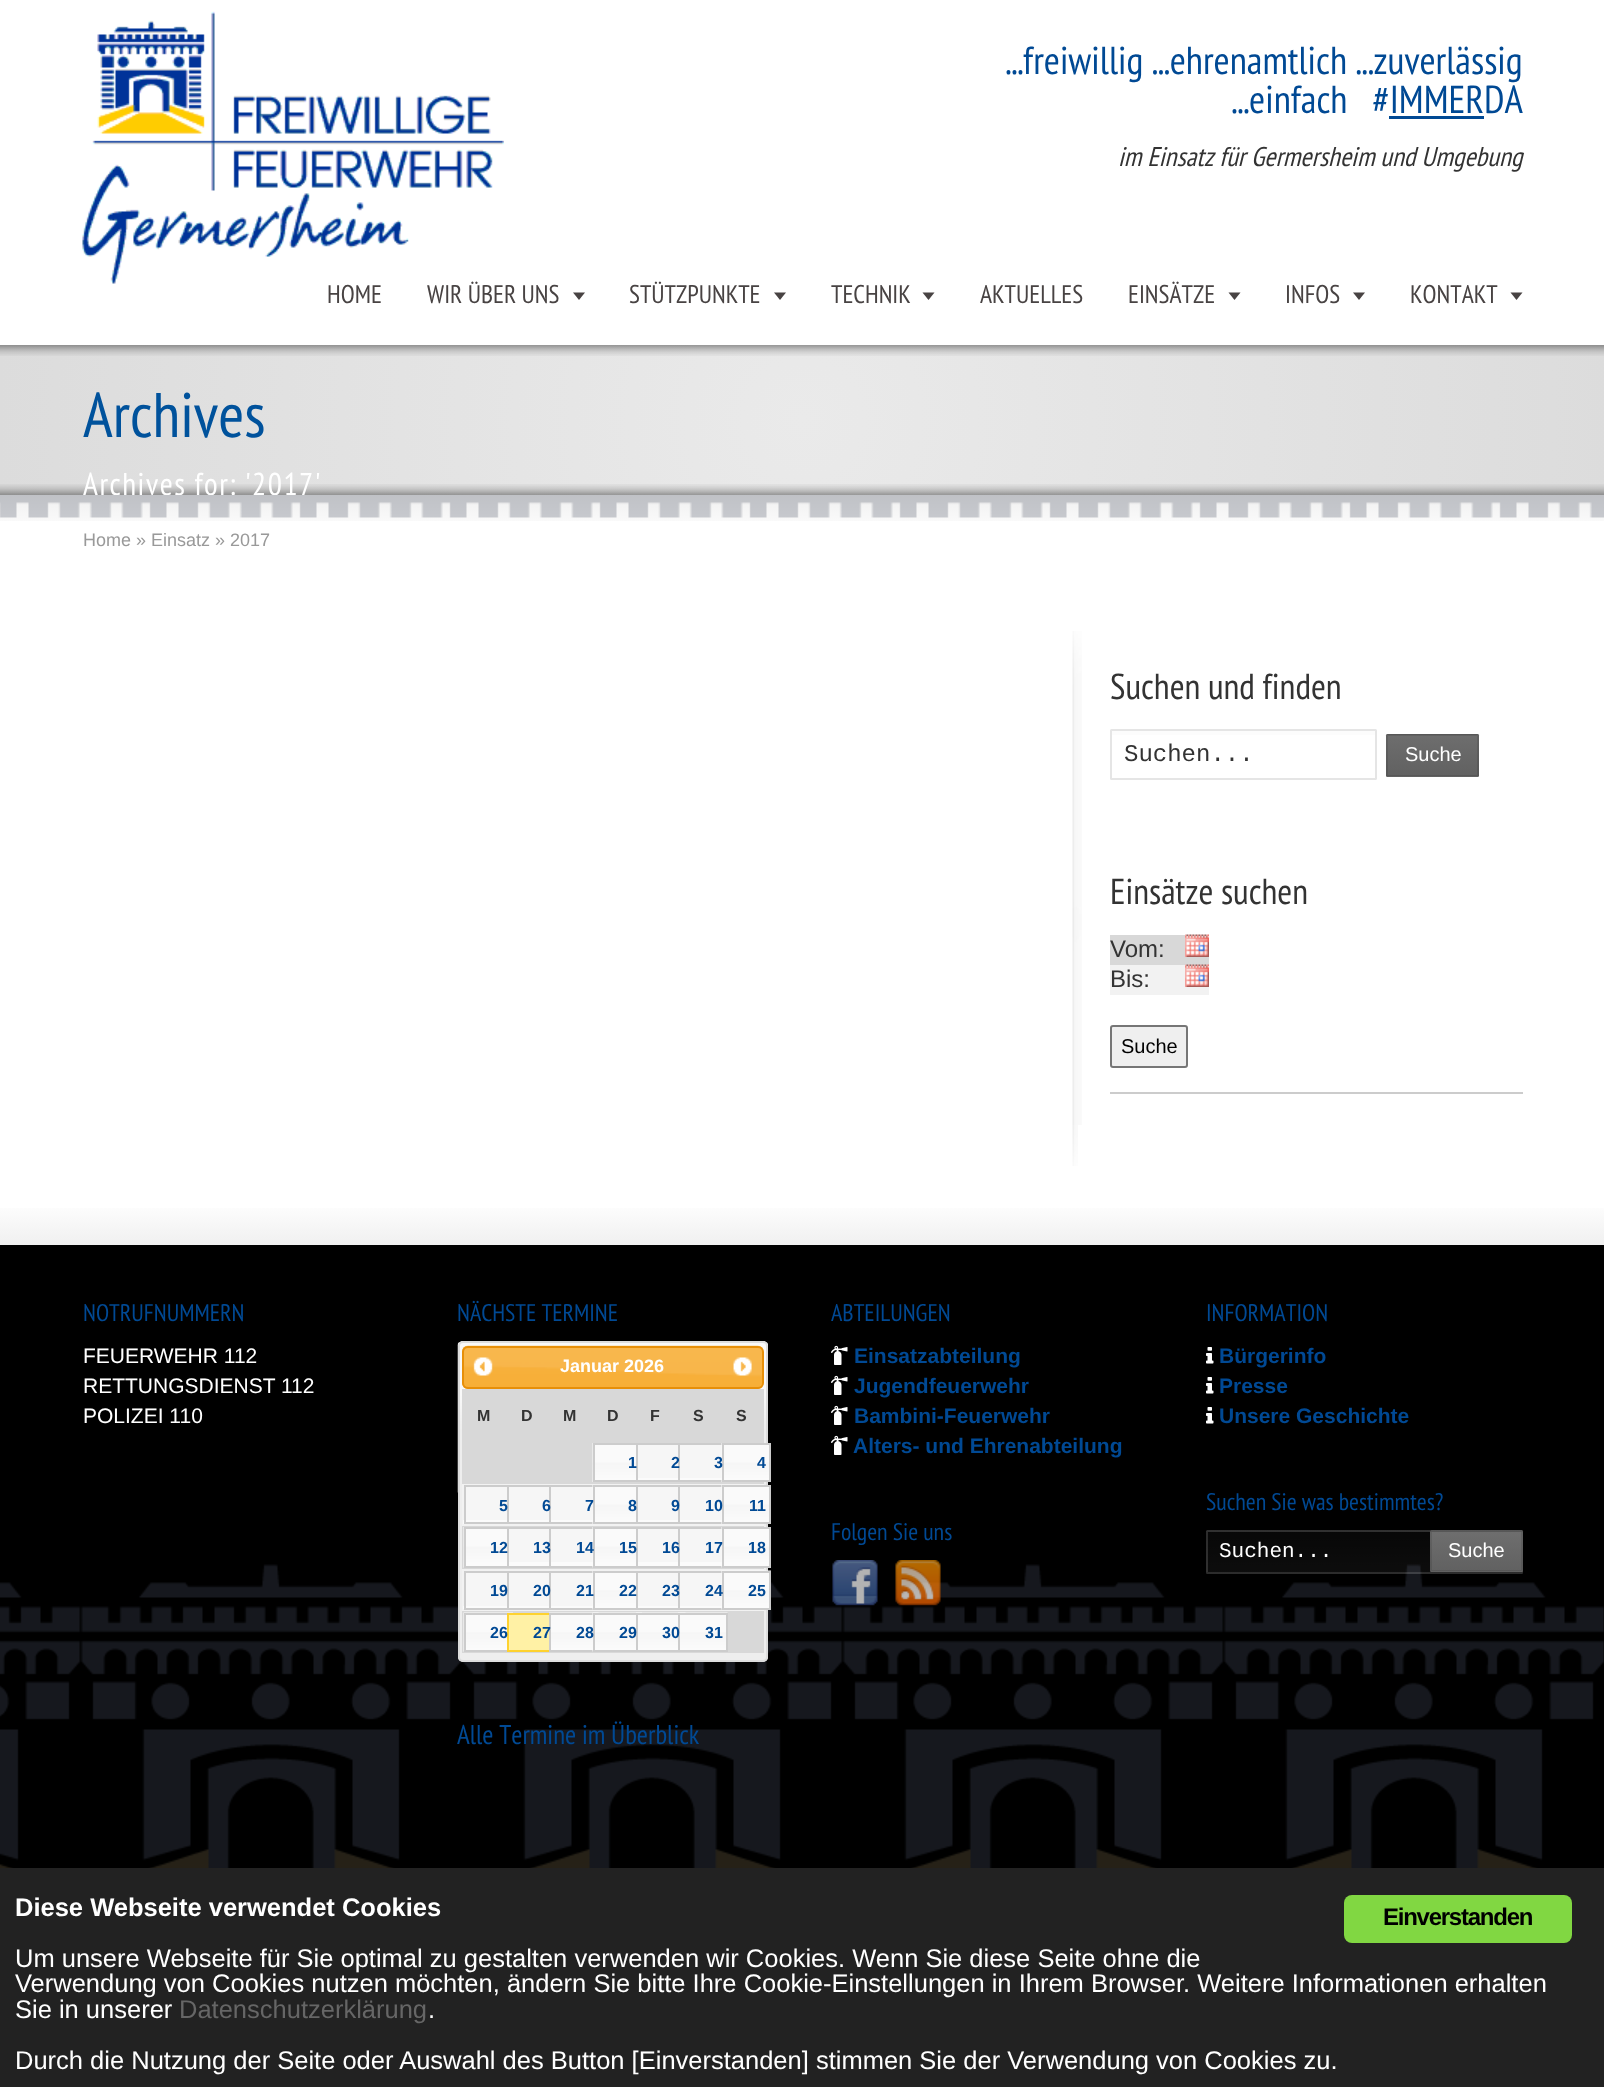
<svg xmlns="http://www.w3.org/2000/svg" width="1604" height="2087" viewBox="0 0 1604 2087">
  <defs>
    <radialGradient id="g1" gradientUnits="userSpaceOnUse" cx="803" cy="420" r="806"><stop offset="0" stop-color="rgb(234,234,234)"/><stop offset="1" stop-color="rgb(220,220,220)"/></radialGradient>
    <linearGradient id="g2" gradientUnits="userSpaceOnUse" x1="803" y1="495" x2="803" y2="536"><stop offset="0" stop-color="rgb(0,0,0)" stop-opacity="0.06"/><stop offset="1" stop-color="rgb(0,0,0)" stop-opacity="0"/></linearGradient>
    <linearGradient id="g3" gradientUnits="userSpaceOnUse" x1="1433" y1="695" x2="1433" y2="735"><stop offset="0" stop-color="rgb(255,255,255)" stop-opacity="0.05"/><stop offset="1" stop-color="rgb(0,0,0)" stop-opacity="0.05"/></linearGradient>
    <linearGradient id="g4" gradientUnits="userSpaceOnUse" x1="1433" y1="735" x2="1433" y2="776"><stop offset="0" stop-color="rgb(255,255,255)" stop-opacity="0.05"/><stop offset="1" stop-color="rgb(0,0,0)" stop-opacity="0.05"/></linearGradient>
    <linearGradient id="g5" gradientUnits="userSpaceOnUse" x1="1433" y1="776" x2="1433" y2="816"><stop offset="0" stop-color="rgb(255,255,255)" stop-opacity="0.05"/><stop offset="1" stop-color="rgb(0,0,0)" stop-opacity="0.05"/></linearGradient>
    <linearGradient id="g6" gradientUnits="userSpaceOnUse" x1="803" y1="1200" x2="803" y2="1245"><stop offset="0" stop-color="rgb(255,255,255)"/><stop offset="1" stop-color="rgb(240,240,240)"/></linearGradient>
    <linearGradient id="g7" gradientUnits="userSpaceOnUse" x1="1364" y1="1491" x2="1364" y2="1532"><stop offset="0" stop-color="rgb(8,8,8)"/><stop offset="1" stop-color="rgb(13,13,13)"/></linearGradient>
    <linearGradient id="g8" gradientUnits="userSpaceOnUse" x1="1364" y1="1532" x2="1364" y2="1572"><stop offset="0" stop-color="rgb(255,255,255)" stop-opacity="0.03"/><stop offset="1" stop-color="rgb(255,255,255)" stop-opacity="0.05"/></linearGradient>
    <linearGradient id="g9" gradientUnits="userSpaceOnUse" x1="1364" y1="1572" x2="1364" y2="1613"><stop offset="0" stop-color="rgb(255,255,255)" stop-opacity="0.03"/><stop offset="1" stop-color="rgb(255,255,255)" stop-opacity="0.05"/></linearGradient>
    <linearGradient id="g10" gradientUnits="userSpaceOnUse" x1="1476" y1="1493" x2="1476" y2="1532"><stop offset="0" stop-color="rgb(255,255,255)" stop-opacity="0.05"/><stop offset="1" stop-color="rgb(0,0,0)" stop-opacity="0.05"/></linearGradient>
    <linearGradient id="g11" gradientUnits="userSpaceOnUse" x1="1476" y1="1532" x2="1476" y2="1571"><stop offset="0" stop-color="rgb(110,110,110)"/><stop offset="1" stop-color="rgb(97,97,97)"/></linearGradient>
    <linearGradient id="g12" gradientUnits="userSpaceOnUse" x1="1476" y1="1571" x2="1476" y2="1610"><stop offset="0" stop-color="rgb(255,255,255)" stop-opacity="0.05"/><stop offset="1" stop-color="rgb(0,0,0)" stop-opacity="0.05"/></linearGradient>
  </defs>
  <rect width="100%" height="100%" fill="rgb(255,255,255)"/>
  <image x="82" y="11" width="422" height="273" href="pic1.png"/>
  <g font-family="PT Sans Narrow" font-size="39" fill="rgb(0,73,148)">
    <text x="1005" y="74">...freiwillig ...ehrenamtlich ...zuverlässig</text>
    <text x="1231" y="113" xml:space="preserve">...einfach   #IMMERDA</text>
  </g>
  <rect x="1389" y="116" width="95" height="3" fill="rgb(0,73,148)"/>
  <text x="1118" y="166" font-family="PT Sans Narrow" font-size="27" font-style="italic" fill="rgb(51,51,51)">im Einsatz für Germersheim und Umgebung</text>
  <g font-family="PT Sans Narrow" font-size="25.5" fill="rgb(72,67,67)">
    <text x="327" y="303">HOME</text>
    <text x="427" y="303">WIR ÜBER UNS</text>
  </g>
  <path d="M573 292.5H585L579 300Z" fill="rgb(72,67,67)"/>
  <text x="629" y="303" font-family="PT Sans Narrow" font-size="25.5" fill="rgb(72,67,67)">STÜTZPUNKTE</text>
  <path d="M774 292.5H786L780 300Z" fill="rgb(72,67,67)"/>
  <text x="831" y="303" font-family="PT Sans Narrow" font-size="25.5" fill="rgb(72,67,67)">TECHNIK</text>
  <path d="M922.5 292.5H934.5L928.5 300Z" fill="rgb(72,67,67)"/>
  <g font-family="PT Sans Narrow" font-size="25.5" fill="rgb(72,67,67)">
    <text x="980" y="303">AKTUELLES</text>
    <text x="1128" y="303">EINSÄTZE</text>
  </g>
  <path d="M1228.5 292.5H1240.5L1234.5 300Z" fill="rgb(72,67,67)"/>
  <text x="1285" y="303" font-family="PT Sans Narrow" font-size="25.5" fill="rgb(72,67,67)">INFOS</text>
  <path d="M1353 292.5H1365L1359 300Z" fill="rgb(72,67,67)"/>
  <text x="1410" y="303" font-family="PT Sans Narrow" font-size="25.5" fill="rgb(72,67,67)">KONTAKT</text>
  <path d="M1510.5 292.5H1522.5L1516.5 300Z" fill="rgb(72,67,67)"/>
  <rect x="0" y="345" width="1604" height="150" fill="url(#g1)"/>
  <image x="0" y="345" width="1604" height="11" href="pic2.png"/>
  <text x="83" y="437" font-family="PT Sans Narrow" font-size="63" fill="rgb(0,82,156)">Archives</text>
  <image x="0" y="484" width="1604" height="11" href="pic3.png"/>
  <text x="83" y="495" font-family="PT Sans Narrow" font-size="31.5" letter-spacing="1.5" fill="rgb(255,255,255)">Archives for: '2017'</text>
  <image x="0" y="495" width="1604" height="23" href="pic4.png"/>
  <rect x="0" y="495" width="1604" height="26" fill="url(#g2)"/>
  <text x="83" y="546" font-family="Liberation Sans" font-size="18" fill="rgb(153,153,153)">Home » Einsatz » 2017</text>
  <image x="1072" y="631" width="10" height="494" href="pic5.png"/>
  <text x="1110" y="699" font-family="PT Sans Narrow" font-size="36" fill="rgb(51,51,51)">Suchen und finden</text>
  <rect x="1112" y="731" width="265" height="4" fill="rgb(252,252,252)"/>
  <rect x="1111" y="730" width="265" height="49" rx="0.5" fill="none" stroke="rgb(229,229,229)" stroke-width="2"/>
  <text x="1124" y="761" font-family="Liberation Mono" font-size="24" fill="rgb(51,51,51)">Suchen...</text>
  <rect x="1386" y="734" width="93" height="43" rx="1.5" fill="rgb(102,102,102)"/>
  <rect x="1386" y="734" width="93" height="1" fill="url(#g3)"/>
  <rect x="1386" y="735" width="93" height="41" fill="url(#g4)"/>
  <rect x="1386" y="776" width="93" height="1" fill="url(#g5)"/>
  <rect x="1387" y="735" width="91" height="41" fill="none" stroke="rgba(0,0,0,0.1)" stroke-width="2"/>
  <text x="1405" y="761" font-family="Liberation Sans" font-size="20" fill="rgb(255,255,255)">Suche</text>
  <text x="1110" y="904" font-family="PT Sans Narrow" font-size="36" fill="rgb(51,51,51)">Einsätze suchen</text>
  <rect x="1110" y="935" width="99" height="30" fill="rgb(216,216,216)"/>
  <text x="1110" y="957" font-family="Liberation Sans" font-size="24" fill="rgb(51,51,51)">Vom:</text>
  <image x="1185" y="934" width="24" height="23" href="pic6.png"/>
  <rect x="1110" y="965" width="99" height="30" fill="rgb(242,242,242)"/>
  <text x="1110" y="987" font-family="Liberation Sans" font-size="24" fill="rgb(51,51,51)">Bis:</text>
  <image x="1185" y="964" width="24" height="23" href="pic7.png"/>
  <rect x="1111" y="1026" width="76" height="41" rx="2" fill="rgb(239,239,239)" stroke="rgb(118,118,118)" stroke-width="2"/>
  <text x="1121" y="1053" font-family="Liberation Sans" font-size="20" fill="rgb(0,0,0)">Suche</text>
  <rect x="1110" y="1092" width="413" height="2" fill="rgb(204,204,204)"/>
  <image x="1072" y="1125" width="6" height="41" href="pic8.png"/>
  <rect x="0" y="1208" width="1604" height="37" fill="url(#g6)"/>
  <rect x="0" y="1245" width="1604" height="623" fill="rgb(0,0,0)"/>
  <image x="0" y="1564" width="1604" height="304" href="pic9.png"/>
  <text x="83" y="1321" font-family="PT Sans Narrow" font-size="24" fill="rgb(0,73,148)">NOTRUFNUMMERN</text>
  <g font-family="Liberation Sans" font-size="21" fill="rgb(255,255,255)">
    <text>
      <tspan x="83" y="1363">FEUERWEHR 112</tspan>
      <tspan x="83" y="1393">RETTUNGSDIENST 112</tspan>
      <tspan x="83" y="1423">POLIZEI 110</tspan>
    </text>
  </g>
  <text x="457" y="1321" font-family="PT Sans Narrow" font-size="24" fill="rgb(0,73,148)">NÄCHSTE TERMINE</text>
  <rect x="458" y="1341" width="310" height="321" rx="5" fill="rgb(238,238,238)"/>
  <image x="457" y="1342" width="311" height="151" href="pic10.png"/>
  <rect x="459" y="1342" width="308" height="319" rx="4" fill="none" stroke="rgb(221,221,221)" stroke-width="2"/>
  <image x="462" y="1345" width="302" height="44" href="pic11.png"/>
  <rect x="463" y="1347" width="300" height="41" rx="5" fill="none" stroke="rgb(231,143,8)" stroke-width="2"/>
  <image x="473" y="1357" width="20" height="19" href="pic12.png"/>
  <text x="560" y="1372" font-family="Liberation Sans" font-size="18" font-weight="bold" fill="rgb(255,255,255)">Januar 2026</text>
  <image x="733" y="1357" width="19" height="19" href="pic13.png"/>
  <rect x="462" y="1389" width="302" height="95" fill="rgb(216,216,216)"/>
  <g font-family="Liberation Sans" font-size="16" font-weight="bold" fill="rgb(51,51,51)">
    <text x="477" y="1421">M</text>
    <text x="521" y="1421">D</text>
    <text x="563" y="1421">M</text>
    <text x="607" y="1421">D</text>
    <text x="650" y="1421">F</text>
    <text x="693" y="1421">S</text>
    <text x="736" y="1421">S</text>
  </g>
  <image x="592" y="1443" width="44" height="39" href="pic14.png"/>
  <rect x="594" y="1444" width="47" height="37" fill="none" stroke="rgb(204,204,204)" stroke-width="2"/>
  <rect x="638" y="1445" width="40" height="33" fill="rgb(246,246,246)"/>
  <rect x="636" y="1478" width="49" height="2" fill="rgb(251,251,251)"/>
  <rect x="637" y="1444" width="48" height="37" fill="none" stroke="rgb(204,204,204)" stroke-width="2"/>
  <text x="628" y="1468" font-family="Liberation Sans" font-size="16" font-weight="bold" fill="rgb(0,73,148)">1</text>
  <rect x="680" y="1445" width="42" height="33" fill="rgb(246,246,246)"/>
  <rect x="678" y="1478" width="49" height="2" fill="rgb(251,251,251)"/>
  <rect x="679" y="1444" width="48" height="37" fill="none" stroke="rgb(204,204,204)" stroke-width="2"/>
  <text x="671" y="1468" font-family="Liberation Sans" font-size="16" font-weight="bold" fill="rgb(0,73,148)">2</text>
  <image x="721" y="1443" width="48" height="39" href="pic15.png"/>
  <rect x="723" y="1444" width="47" height="37" fill="none" stroke="rgb(204,204,204)" stroke-width="2"/>
  <g font-family="Liberation Sans" font-size="16" font-weight="bold" fill="rgb(0,73,148)">
    <text x="714" y="1468">3</text>
    <text x="757" y="1468">4</text>
  </g>
  <rect x="462" y="1484" width="302" height="42" fill="rgb(242,242,242)"/>
  <rect x="466" y="1487" width="41" height="33" fill="rgb(246,246,246)"/>
  <rect x="463" y="1520" width="50" height="4" fill="rgb(251,251,251)"/>
  <rect x="465" y="1486" width="47" height="37" fill="none" stroke="rgb(204,204,204)" stroke-width="2"/>
  <rect x="509" y="1487" width="40" height="33" fill="rgb(246,246,246)"/>
  <rect x="507" y="1520" width="49" height="2" fill="rgb(251,251,251)"/>
  <rect x="508" y="1486" width="48" height="37" fill="none" stroke="rgb(204,204,204)" stroke-width="2"/>
  <text x="499" y="1511" font-family="Liberation Sans" font-size="16" font-weight="bold" fill="rgb(0,73,148)">5</text>
  <rect x="551" y="1487" width="42" height="33" fill="rgb(246,246,246)"/>
  <rect x="549" y="1520" width="49" height="2" fill="rgb(251,251,251)"/>
  <rect x="550" y="1486" width="48" height="37" fill="none" stroke="rgb(204,204,204)" stroke-width="2"/>
  <text x="542" y="1511" font-family="Liberation Sans" font-size="16" font-weight="bold" fill="rgb(0,73,148)">6</text>
  <image x="592" y="1485" width="44" height="39" href="pic16.png"/>
  <rect x="594" y="1486" width="47" height="37" fill="none" stroke="rgb(204,204,204)" stroke-width="2"/>
  <text x="585" y="1511" font-family="Liberation Sans" font-size="16" font-weight="bold" fill="rgb(0,73,148)">7</text>
  <rect x="638" y="1487" width="40" height="33" fill="rgb(246,246,246)"/>
  <rect x="636" y="1520" width="49" height="2" fill="rgb(251,251,251)"/>
  <rect x="637" y="1486" width="48" height="37" fill="none" stroke="rgb(204,204,204)" stroke-width="2"/>
  <text x="628" y="1511" font-family="Liberation Sans" font-size="16" font-weight="bold" fill="rgb(0,73,148)">8</text>
  <rect x="680" y="1487" width="42" height="33" fill="rgb(246,246,246)"/>
  <rect x="678" y="1520" width="49" height="2" fill="rgb(251,251,251)"/>
  <rect x="679" y="1486" width="48" height="37" fill="none" stroke="rgb(204,204,204)" stroke-width="2"/>
  <text x="671" y="1511" font-family="Liberation Sans" font-size="16" font-weight="bold" fill="rgb(0,73,148)">9</text>
  <image x="721" y="1485" width="48" height="39" href="pic15.png"/>
  <rect x="723" y="1486" width="47" height="37" fill="none" stroke="rgb(204,204,204)" stroke-width="2"/>
  <g font-family="Liberation Sans" font-size="16" font-weight="bold" fill="rgb(0,73,148)">
    <text x="705" y="1511">10</text>
    <text x="749" y="1511">11</text>
  </g>
  <rect x="462" y="1526" width="302" height="43" fill="rgb(216,216,216)"/>
  <image x="463" y="1527" width="44" height="41" href="pic17.png"/>
  <rect x="465" y="1528" width="47" height="39" fill="none" stroke="rgb(204,204,204)" stroke-width="2"/>
  <rect x="509" y="1529" width="40" height="33" fill="rgb(246,246,246)"/>
  <rect x="507" y="1562" width="49" height="4" fill="rgb(251,251,251)"/>
  <rect x="508" y="1528" width="48" height="39" fill="none" stroke="rgb(204,204,204)" stroke-width="2"/>
  <text x="490" y="1553" font-family="Liberation Sans" font-size="16" font-weight="bold" fill="rgb(0,73,148)">12</text>
  <rect x="551" y="1529" width="42" height="33" fill="rgb(246,246,246)"/>
  <rect x="549" y="1562" width="49" height="4" fill="rgb(251,251,251)"/>
  <rect x="550" y="1528" width="48" height="39" fill="none" stroke="rgb(204,204,204)" stroke-width="2"/>
  <text x="533" y="1553" font-family="Liberation Sans" font-size="16" font-weight="bold" fill="rgb(0,73,148)">13</text>
  <image x="592" y="1527" width="44" height="41" href="pic18.png"/>
  <rect x="594" y="1528" width="47" height="39" fill="none" stroke="rgb(204,204,204)" stroke-width="2"/>
  <text x="576" y="1553" font-family="Liberation Sans" font-size="16" font-weight="bold" fill="rgb(0,73,148)">14</text>
  <rect x="638" y="1529" width="40" height="33" fill="rgb(246,246,246)"/>
  <rect x="636" y="1562" width="49" height="4" fill="rgb(251,251,251)"/>
  <rect x="637" y="1528" width="48" height="39" fill="none" stroke="rgb(204,204,204)" stroke-width="2"/>
  <text x="619" y="1553" font-family="Liberation Sans" font-size="16" font-weight="bold" fill="rgb(0,73,148)">15</text>
  <rect x="680" y="1529" width="42" height="33" fill="rgb(246,246,246)"/>
  <rect x="678" y="1562" width="49" height="4" fill="rgb(251,251,251)"/>
  <rect x="679" y="1528" width="48" height="39" fill="none" stroke="rgb(204,204,204)" stroke-width="2"/>
  <text x="662" y="1553" font-family="Liberation Sans" font-size="16" font-weight="bold" fill="rgb(0,73,148)">16</text>
  <image x="721" y="1527" width="48" height="41" href="pic19.png"/>
  <rect x="723" y="1528" width="47" height="39" fill="none" stroke="rgb(204,204,204)" stroke-width="2"/>
  <g font-family="Liberation Sans" font-size="16" font-weight="bold" fill="rgb(0,73,148)">
    <text x="705" y="1553">17</text>
    <text x="748" y="1553">18</text>
  </g>
  <rect x="462" y="1569" width="302" height="42" fill="rgb(242,242,242)"/>
  <rect x="466" y="1573" width="41" height="33" fill="rgb(246,246,246)"/>
  <rect x="463" y="1606" width="50" height="3" fill="rgb(251,251,251)"/>
  <rect x="465" y="1572" width="47" height="37" fill="none" stroke="rgb(204,204,204)" stroke-width="2"/>
  <rect x="509" y="1573" width="40" height="33" fill="rgb(246,246,246)"/>
  <rect x="507" y="1606" width="49" height="2" fill="rgb(251,251,251)"/>
  <rect x="508" y="1572" width="48" height="37" fill="none" stroke="rgb(204,204,204)" stroke-width="2"/>
  <text x="490" y="1596" font-family="Liberation Sans" font-size="16" font-weight="bold" fill="rgb(0,73,148)">19</text>
  <rect x="551" y="1573" width="42" height="33" fill="rgb(246,246,246)"/>
  <rect x="549" y="1606" width="49" height="2" fill="rgb(251,251,251)"/>
  <rect x="550" y="1572" width="48" height="37" fill="none" stroke="rgb(204,204,204)" stroke-width="2"/>
  <text x="533" y="1596" font-family="Liberation Sans" font-size="16" font-weight="bold" fill="rgb(0,73,148)">20</text>
  <image x="592" y="1571" width="44" height="39" href="pic20.png"/>
  <rect x="594" y="1572" width="47" height="37" fill="none" stroke="rgb(204,204,204)" stroke-width="2"/>
  <text x="576" y="1596" font-family="Liberation Sans" font-size="16" font-weight="bold" fill="rgb(0,73,148)">21</text>
  <rect x="638" y="1573" width="40" height="33" fill="rgb(246,246,246)"/>
  <rect x="636" y="1606" width="49" height="2" fill="rgb(251,251,251)"/>
  <rect x="637" y="1572" width="48" height="37" fill="none" stroke="rgb(204,204,204)" stroke-width="2"/>
  <text x="619" y="1596" font-family="Liberation Sans" font-size="16" font-weight="bold" fill="rgb(0,73,148)">22</text>
  <rect x="680" y="1573" width="42" height="33" fill="rgb(246,246,246)"/>
  <rect x="678" y="1606" width="49" height="2" fill="rgb(251,251,251)"/>
  <rect x="679" y="1572" width="48" height="37" fill="none" stroke="rgb(204,204,204)" stroke-width="2"/>
  <text x="662" y="1596" font-family="Liberation Sans" font-size="16" font-weight="bold" fill="rgb(0,73,148)">23</text>
  <image x="721" y="1570" width="50" height="40" href="pic21.png"/>
  <rect x="723" y="1572" width="47" height="37" fill="none" stroke="rgb(204,204,204)" stroke-width="2"/>
  <g font-family="Liberation Sans" font-size="16" font-weight="bold" fill="rgb(0,73,148)">
    <text x="705" y="1596">24</text>
    <text x="748" y="1596">25</text>
  </g>
  <rect x="462" y="1611" width="302" height="42" fill="rgb(216,216,216)"/>
  <image x="463" y="1612" width="50" height="40" href="pic22.png"/>
  <rect x="465" y="1614" width="47" height="37" fill="none" stroke="rgb(204,204,204)" stroke-width="2"/>
  <rect x="509" y="1615" width="40" height="35" fill="rgb(255,241,165)"/>
  <rect x="508" y="1614" width="48" height="37" fill="none" stroke="rgb(254,210,47)" stroke-width="2"/>
  <text x="490" y="1638" font-family="Liberation Sans" font-size="16" font-weight="bold" fill="rgb(0,73,148)">26</text>
  <image x="549" y="1612" width="50" height="38" href="pic23.png"/>
  <rect x="550" y="1614" width="48" height="37" fill="none" stroke="rgb(204,204,204)" stroke-width="2"/>
  <text x="533" y="1638" font-family="Liberation Sans" font-size="16" font-weight="bold" fill="rgb(0,73,148)">27</text>
  <image x="592" y="1612" width="50" height="40" href="pic24.png"/>
  <rect x="594" y="1614" width="47" height="37" fill="none" stroke="rgb(204,204,204)" stroke-width="2"/>
  <text x="576" y="1638" font-family="Liberation Sans" font-size="16" font-weight="bold" fill="rgb(0,73,148)">28</text>
  <image x="636" y="1612" width="50" height="38" href="pic25.png"/>
  <rect x="637" y="1614" width="48" height="37" fill="none" stroke="rgb(204,204,204)" stroke-width="2"/>
  <text x="619" y="1638" font-family="Liberation Sans" font-size="16" font-weight="bold" fill="rgb(0,73,148)">29</text>
  <image x="678" y="1612" width="50" height="38" href="pic26.png"/>
  <rect x="679" y="1614" width="48" height="37" fill="none" stroke="rgb(204,204,204)" stroke-width="2"/>
  <g font-family="Liberation Sans" font-size="16" font-weight="bold" fill="rgb(0,73,148)">
    <text x="662" y="1638">30</text>
    <text x="705" y="1638">31</text>
  </g>
  <text x="457" y="1744" font-family="PT Sans Narrow" font-size="27" fill="rgb(0,73,148)">Alle Termine im Überblick</text>
  <text x="831" y="1321" font-family="PT Sans Narrow" font-size="24" fill="rgb(0,73,148)">ABTEILUNGEN</text>
  <image x="831" y="1345" width="17" height="20" href="pic27.png"/>
  <text x="854" y="1363" font-family="Liberation Sans" font-size="21" font-weight="bold" fill="rgb(0,73,148)">Einsatzabteilung</text>
  <image x="831" y="1375" width="17" height="20" href="pic27.png"/>
  <text x="854" y="1393" font-family="Liberation Sans" font-size="21" font-weight="bold" fill="rgb(0,73,148)">Jugendfeuerwehr</text>
  <image x="831" y="1405" width="17" height="20" href="pic27.png"/>
  <text x="854" y="1423" font-family="Liberation Sans" font-size="21" font-weight="bold" fill="rgb(0,73,148)">Bambini-Feuerwehr</text>
  <image x="831" y="1435" width="17" height="20" href="pic27.png"/>
  <text x="853" y="1453" font-family="Liberation Sans" font-size="21" font-weight="bold" fill="rgb(0,73,148)">Alters- und Ehrenabteilung</text>
  <text x="831" y="1540" font-family="PT Sans Narrow" font-size="24" fill="rgb(0,73,148)">Folgen Sie uns</text>
  <image x="832" y="1560" width="46" height="46" href="pic28.png"/>
  <image x="895" y="1560" width="46" height="46" href="pic29.png"/>
  <text x="1206" y="1321" font-family="PT Sans Narrow" font-size="24" fill="rgb(0,73,148)">INFORMATION</text>
  <image x="1206" y="1347" width="8" height="17" href="pic30.png"/>
  <text x="1219" y="1363" font-family="Liberation Sans" font-size="21" font-weight="bold" fill="rgb(0,73,148)">Bürgerinfo</text>
  <image x="1206" y="1377" width="8" height="17" href="pic30.png"/>
  <text x="1219" y="1393" font-family="Liberation Sans" font-size="21" font-weight="bold" fill="rgb(0,73,148)">Presse</text>
  <image x="1206" y="1407" width="8" height="17" href="pic30.png"/>
  <text x="1219" y="1423" font-family="Liberation Sans" font-size="21" font-weight="bold" fill="rgb(0,73,148)">Unsere Geschichte</text>
  <text x="1206" y="1510" font-family="PT Sans Narrow" font-size="24" fill="rgb(0,73,148)">Suchen Sie was bestimmtes?</text>
  <path d="M1207.5 1530H1521.5C1522.5 1530 1523 1530.5 1523 1531.5V1532H1206V1531.5C1206 1530.5 1206.5 1530 1207.5 1530Z" fill="url(#g7)"/>
  <rect x="1206" y="1532" width="317" height="40" fill="url(#g8)"/>
  <rect x="1206" y="1572" width="317" height="2" fill="url(#g9)"/>
  <rect x="1207" y="1531" width="315" height="42" rx="0.5" fill="none" stroke="rgba(255,255,255,0.15)" stroke-width="2"/>
  <text x="1219" y="1557" font-family="Liberation Mono" font-size="21" fill="rgb(255,255,255)">Suchen...</text>
  <rect x="1430" y="1530" width="93" height="42" rx="1.5" fill="rgb(102,102,102)"/>
  <rect x="1430" y="1530" width="93" height="2" fill="url(#g10)"/>
  <rect x="1430" y="1532" width="93" height="39" fill="url(#g11)"/>
  <rect x="1430" y="1571" width="93" height="1" fill="url(#g12)"/>
  <rect x="1431" y="1531" width="91" height="40" fill="none" stroke="rgba(0,0,0,0.1)" stroke-width="2"/>
  <text x="1448" y="1557" font-family="Liberation Sans" font-size="20" fill="rgb(255,255,255)">Suche</text>
  <rect x="0" y="1868" width="1604" height="219" fill="rgb(34,34,34)"/>
  <text x="15" y="1916" font-family="Liberation Sans" font-size="25.5" font-weight="bold" fill="rgb(255,255,255)">Diese Webseite verwendet Cookies</text>
  <g font-family="Liberation Sans" font-size="25.5" fill="rgb(255,255,255)">
    <text>
      <tspan x="15" y="1967">Um unsere Webseite für Sie optimal zu gestalten verwenden wir Cookies. Wenn Sie diese Seite ohne die</tspan>
      <tspan x="15" y="1992">Verwendung von Cookies nutzen möchten, ändern Sie bitte Ihre Cookie-Einstellungen in Ihrem Browser. Weitere Informationen erhalten</tspan>
      <tspan x="15" y="2018">Sie in unserer</tspan>
    </text>
  </g>
  <text x="179" y="2018" font-family="Liberation Sans" font-size="25.5" fill="rgb(102,102,102)">Datenschutzerklärung</text>
  <g font-family="Liberation Sans" font-size="25.5" fill="rgb(255,255,255)">
    <text x="428" y="2018">.</text>
    <text x="15" y="2069">Durch die Nutzung der Seite oder Auswahl des Button [Einverstanden] stimmen Sie der Verwendung von Cookies zu.</text>
  </g>
  <rect x="1344" y="1895" width="228" height="48" rx="8" fill="rgb(129,215,66)"/>
  <text x="1383" y="1925" font-family="Liberation Sans" font-size="24" font-weight="bold" letter-spacing="-1.25" fill="rgb(0,0,0)">Einverstanden</text>
</svg>
